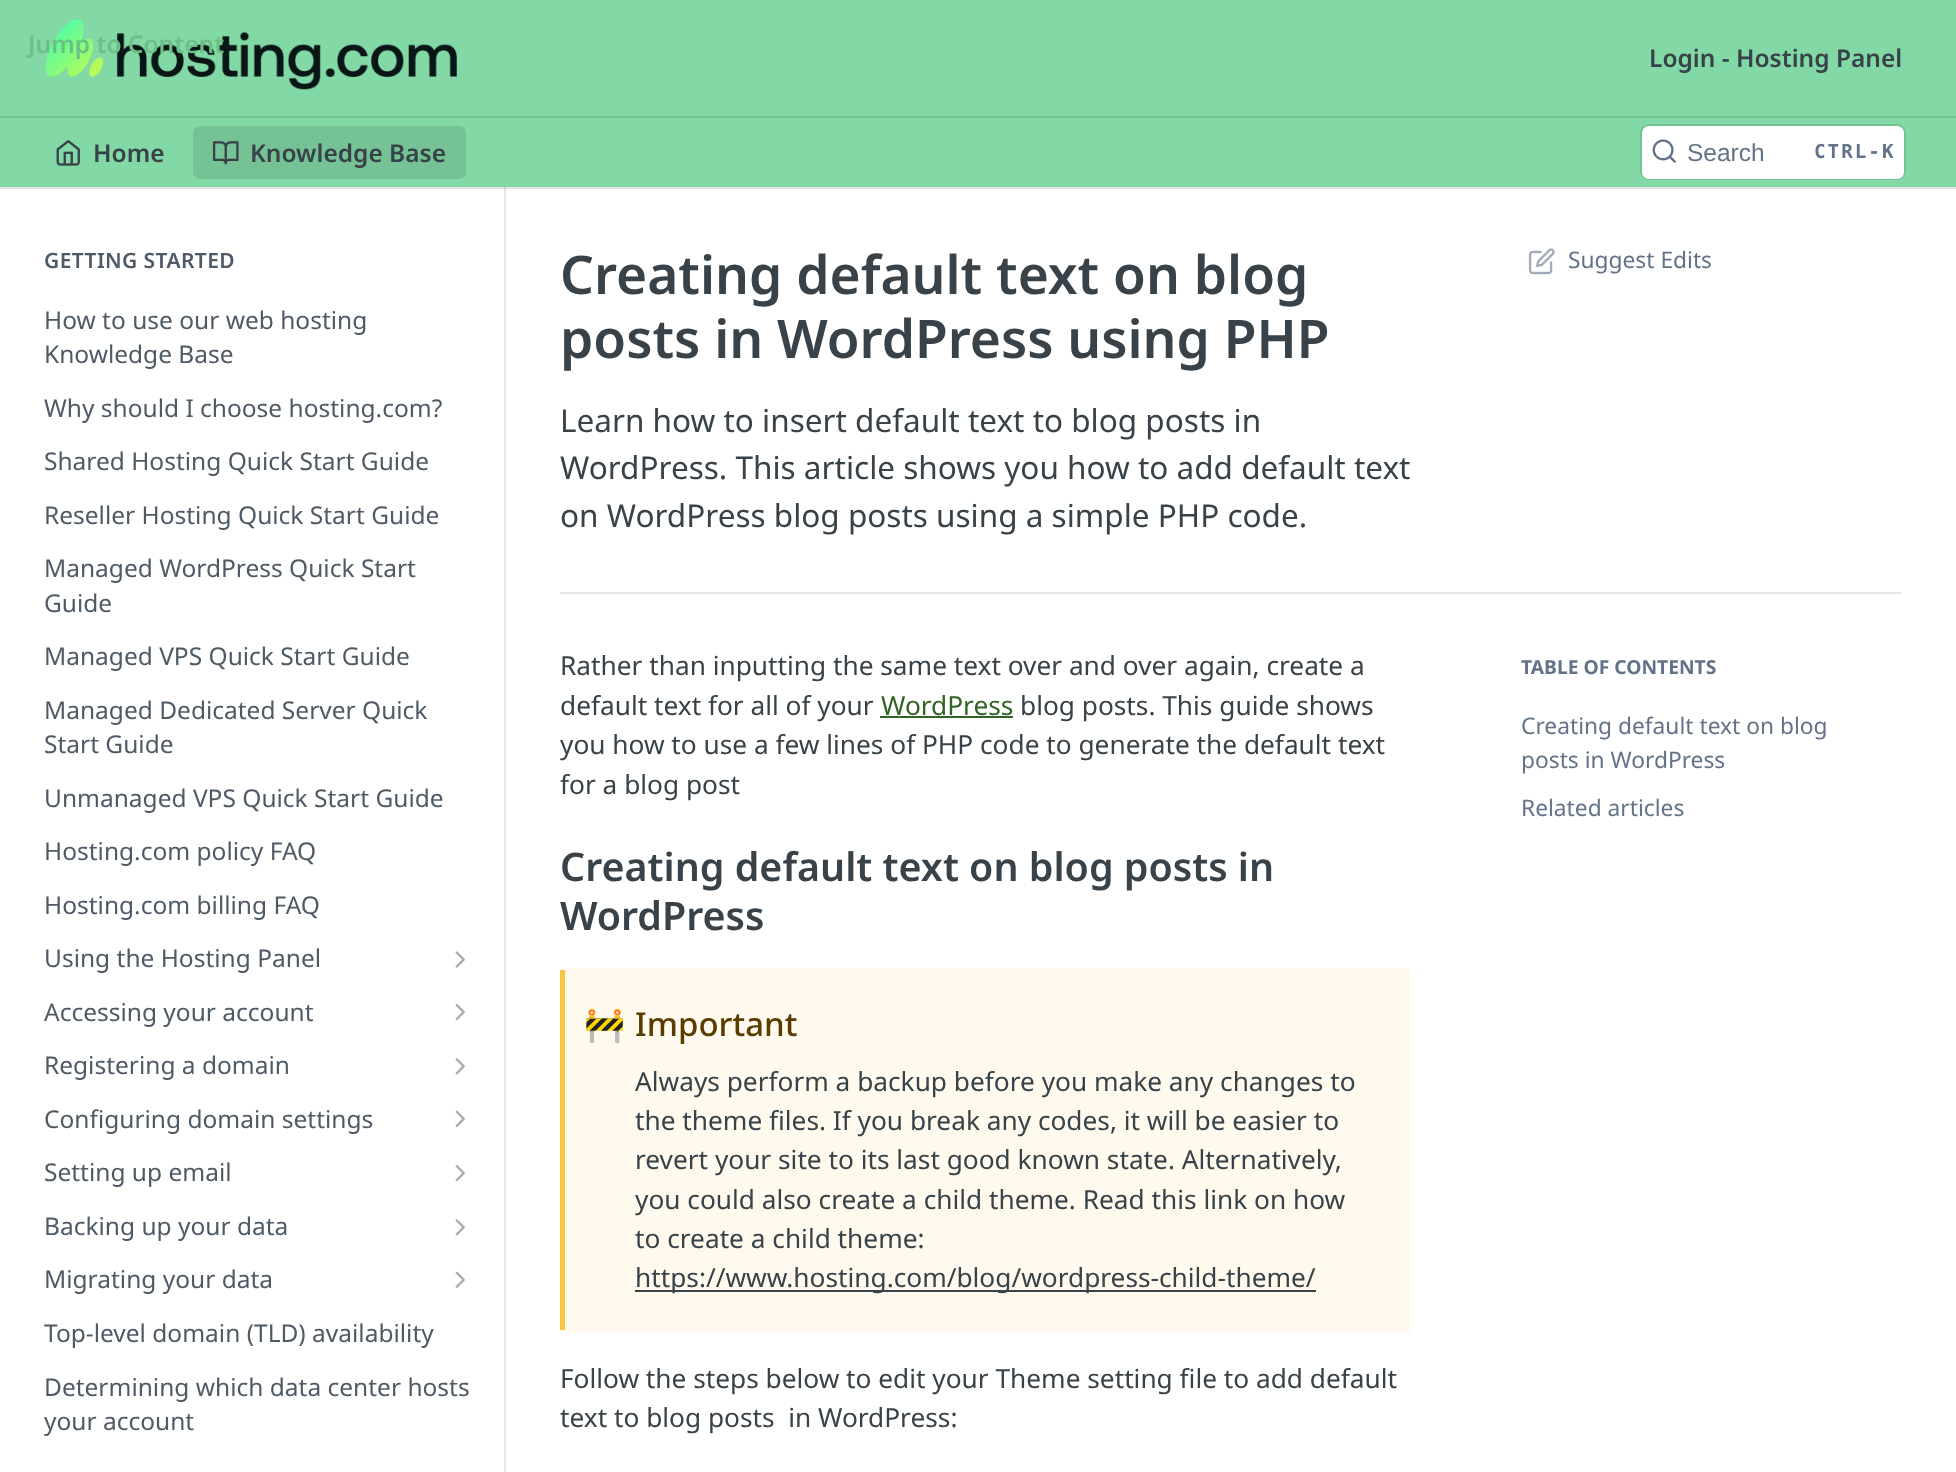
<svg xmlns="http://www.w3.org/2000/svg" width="1956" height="1472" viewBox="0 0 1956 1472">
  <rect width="100%" height="100%" fill="rgb(255,255,255)"/>
  <path d="M2 187H504V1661H2H506V187Z" fill="rgb(230,230,230)"/>
  <path d="M0 187V189H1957V2H1956V187Z" fill="rgba(0,0,0,0.1)"/>
  <rect x="0" y="0" width="1956" height="187" fill="rgb(130,217,165)"/>
  <rect x="0" y="116" width="1956" height="2" fill="rgb(117,195,149)"/>
  <image x="45" y="19" width="412" height="71" href="pic1.png"/>
  <text x="28" y="53" font-family="Noto Sans" font-size="24.5" font-weight="600" fill="rgb(108,192,134)">Jump to Content</text>
  <text x="1649" y="67" font-family="Noto Sans" font-size="24.5" font-weight="600" fill="rgb(56,66,72)">Login - Hosting Panel</text>
  <image x="56" y="140" width="24" height="26" href="pic2.png"/>
  <text x="93" y="162" font-family="Noto Sans" font-size="24.5" font-weight="600" fill="rgb(56,66,72)">Home</text>
  <rect x="193" y="126" width="273" height="53" rx="7" fill="rgb(117,195,149)"/>
  <image x="212" y="141" width="27" height="24" href="pic3.png"/>
  <text x="250" y="162" font-family="Noto Sans" font-size="24.5" font-weight="600" fill="rgb(56,66,72)">Knowledge Base</text>
  <rect x="1641" y="125" width="264" height="54" rx="8" fill="none" stroke="rgb(117,195,149)" stroke-width="2"/>
  <rect x="1642" y="126" width="262" height="53" rx="7" fill="rgb(255,255,255)"/>
  <image x="1652" y="139" width="24" height="24" href="pic4.png"/>
  <text x="1687" y="161" font-family="Liberation Sans" font-size="24.5" fill="rgb(99,114,136)">Search</text>
  <text x="1814" y="158" font-family="DejaVu Sans Mono" font-size="19.25" font-weight="bold" letter-spacing="2" fill="rgb(99,114,136)">CTRL-K</text>
  <text x="44" y="268" font-family="Noto Sans" font-size="21" font-weight="600" letter-spacing="0.4" fill="rgb(79,90,102)">GETTING STARTED</text>
  <g font-family="Noto Sans" font-size="24.5" fill="rgb(79,90,102)">
    <text>
      <tspan x="44" y="329">How to use our web hosting</tspan>
      <tspan x="44" y="363">Knowledge Base</tspan>
    </text>
    <text x="44" y="417">Why should I choose hosting.com?</text>
    <text x="44" y="470">Shared Hosting Quick Start Guide</text>
    <text x="44" y="524">Reseller Hosting Quick Start Guide</text>
    <text>
      <tspan x="44" y="577">Managed WordPress Quick Start</tspan>
      <tspan x="44" y="612">Guide</tspan>
    </text>
    <text x="44" y="665">Managed VPS Quick Start Guide</text>
    <text>
      <tspan x="44" y="719">Managed Dedicated Server Quick</tspan>
      <tspan x="44" y="753">Start Guide</tspan>
    </text>
    <text x="44" y="807">Unmanaged VPS Quick Start Guide</text>
    <text x="44" y="860">Hosting.com policy FAQ</text>
    <text x="44" y="914">Hosting.com billing FAQ</text>
    <text x="44" y="967">Using the Hosting Panel</text>
  </g>
  <image x="455" y="951" width="10" height="17" href="pic5.png"/>
  <text x="44" y="1021" font-family="Noto Sans" font-size="24.5" fill="rgb(79,90,102)">Accessing your account</text>
  <image x="455" y="1004" width="10" height="17" href="pic6.png"/>
  <text x="44" y="1074" font-family="Noto Sans" font-size="24.5" fill="rgb(79,90,102)">Registering a domain</text>
  <image x="455" y="1058" width="10" height="17" href="pic7.png"/>
  <text x="44" y="1128" font-family="Noto Sans" font-size="24.5" fill="rgb(79,90,102)">Configuring domain settings</text>
  <image x="455" y="1110" width="10" height="17" href="pic8.png"/>
  <text x="44" y="1181" font-family="Noto Sans" font-size="24.5" fill="rgb(79,90,102)">Setting up email</text>
  <image x="455" y="1165" width="10" height="17" href="pic6.png"/>
  <text x="44" y="1235" font-family="Noto Sans" font-size="24.5" fill="rgb(79,90,102)">Backing up your data</text>
  <image x="455" y="1219" width="10" height="17" href="pic7.png"/>
  <text x="44" y="1288" font-family="Noto Sans" font-size="24.5" fill="rgb(79,90,102)">Migrating your data</text>
  <image x="455" y="1271" width="10" height="17" href="pic8.png"/>
  <g font-family="Noto Sans" font-size="24.5" fill="rgb(79,90,102)">
    <text x="44" y="1342">Top-level domain (TLD) availability</text>
    <text>
      <tspan x="44" y="1396">Determining which data center hosts</tspan>
      <tspan x="44" y="1430">your account</tspan>
    </text>
  </g>
  <rect x="560" y="592" width="1341" height="2" fill="rgb(230,230,230)"/>
  <g font-family="Noto Sans" font-size="53.25" font-weight="600" fill="rgb(56,66,72)">
    <text>
      <tspan x="560" y="294">Creating default text on blog</tspan>
      <tspan x="560" y="358">posts in WordPress using PHP</tspan>
    </text>
  </g>
  <g font-family="Noto Sans" font-size="31.5" fill="rgb(56,66,72)">
    <text>
      <tspan x="560" y="432">Learn how to insert default text to blog posts in</tspan>
      <tspan x="560" y="479">WordPress. This article shows you how to add default text</tspan>
      <tspan x="560" y="527">on WordPress blog posts using a simple PHP code.</tspan>
    </text>
  </g>
  <image x="1528" y="248" width="27" height="27" href="pic9.png"/>
  <text x="1568" y="268" font-family="Noto Sans" font-size="22.75" fill="rgb(99,114,136)">Suggest Edits</text>
  <g font-family="Noto Sans" font-size="26.25" fill="rgb(56,66,72)">
    <text>
      <tspan x="560" y="675">Rather than inputting the same text over and over again, create a</tspan>
      <tspan x="560" y="715">default text for all of your</tspan>
    </text>
  </g>
  <text x="881" y="715" font-family="Noto Sans" font-size="26.25" fill="rgb(50,99,36)">WordPress</text>
  <rect x="880" y="716" width="133" height="2" fill="rgb(50,99,36)"/>
  <g font-family="Noto Sans" font-size="26.25" fill="rgb(56,66,72)">
    <text x="1020" y="715">blog posts. This guide shows</text>
    <text>
      <tspan x="560" y="754">you how to use a few lines of PHP code to generate the default text</tspan>
      <tspan x="560" y="794">for a blog post</tspan>
    </text>
  </g>
  <g font-family="Noto Sans" font-size="39.4" font-weight="600" fill="rgb(56,66,72)">
    <text>
      <tspan x="560" y="881">Creating default text on blog posts in</tspan>
      <tspan x="560" y="930">WordPress</tspan>
    </text>
  </g>
  <rect x="560" y="968" width="851" height="364" rx="4" fill="rgb(255,250,237)"/>
  <rect x="560" y="970" width="5" height="360" fill="rgb(247,197,67)"/>
  <text x="584" y="1036" font-family="Noto Color Emoji" font-size="33" fill="rgb(90,60,0)">🚧</text>
  <text x="635" y="1036" font-family="Noto Sans" font-size="33" font-weight="500" fill="rgb(90,60,0)">Important</text>
  <g font-family="Noto Sans" font-size="26.25" fill="rgb(56,66,72)">
    <text>
      <tspan x="635" y="1091">Always perform a backup before you make any changes to</tspan>
      <tspan x="635" y="1130">the theme files. If you break any codes, it will be easier to</tspan>
      <tspan x="635" y="1169">revert your site to its last good known state. Alternatively,</tspan>
      <tspan x="635" y="1209">you could also create a child theme. Read this link on how</tspan>
      <tspan x="635" y="1248">to create a child theme:</tspan>
    </text>
  </g>
  <rect x="635" y="1290" width="681" height="2" fill="rgb(56,66,72)"/>
  <g font-family="Noto Sans" font-size="26.25" fill="rgb(56,66,72)">
    <text x="635" y="1287">https://www.hosting.com/blog/wordpress-child-theme/</text>
    <text xml:space="preserve"><tspan x="560" y="1388">Follow the steps below to edit your Theme setting file to add default</tspan><tspan x="560" y="1427">text to blog posts  in WordPress:</tspan></text>
  </g>
  <text x="1521" y="674" font-family="Noto Sans" font-size="19.25" font-weight="bold" fill="rgb(99,114,136)">TABLE OF CONTENTS</text>
  <g font-family="Noto Sans" font-size="22.75" fill="rgb(99,114,136)">
    <text>
      <tspan x="1521" y="734">Creating default text on blog</tspan>
      <tspan x="1521" y="768">posts in WordPress</tspan>
    </text>
    <text x="1521" y="816">Related articles</text>
  </g>
</svg>
